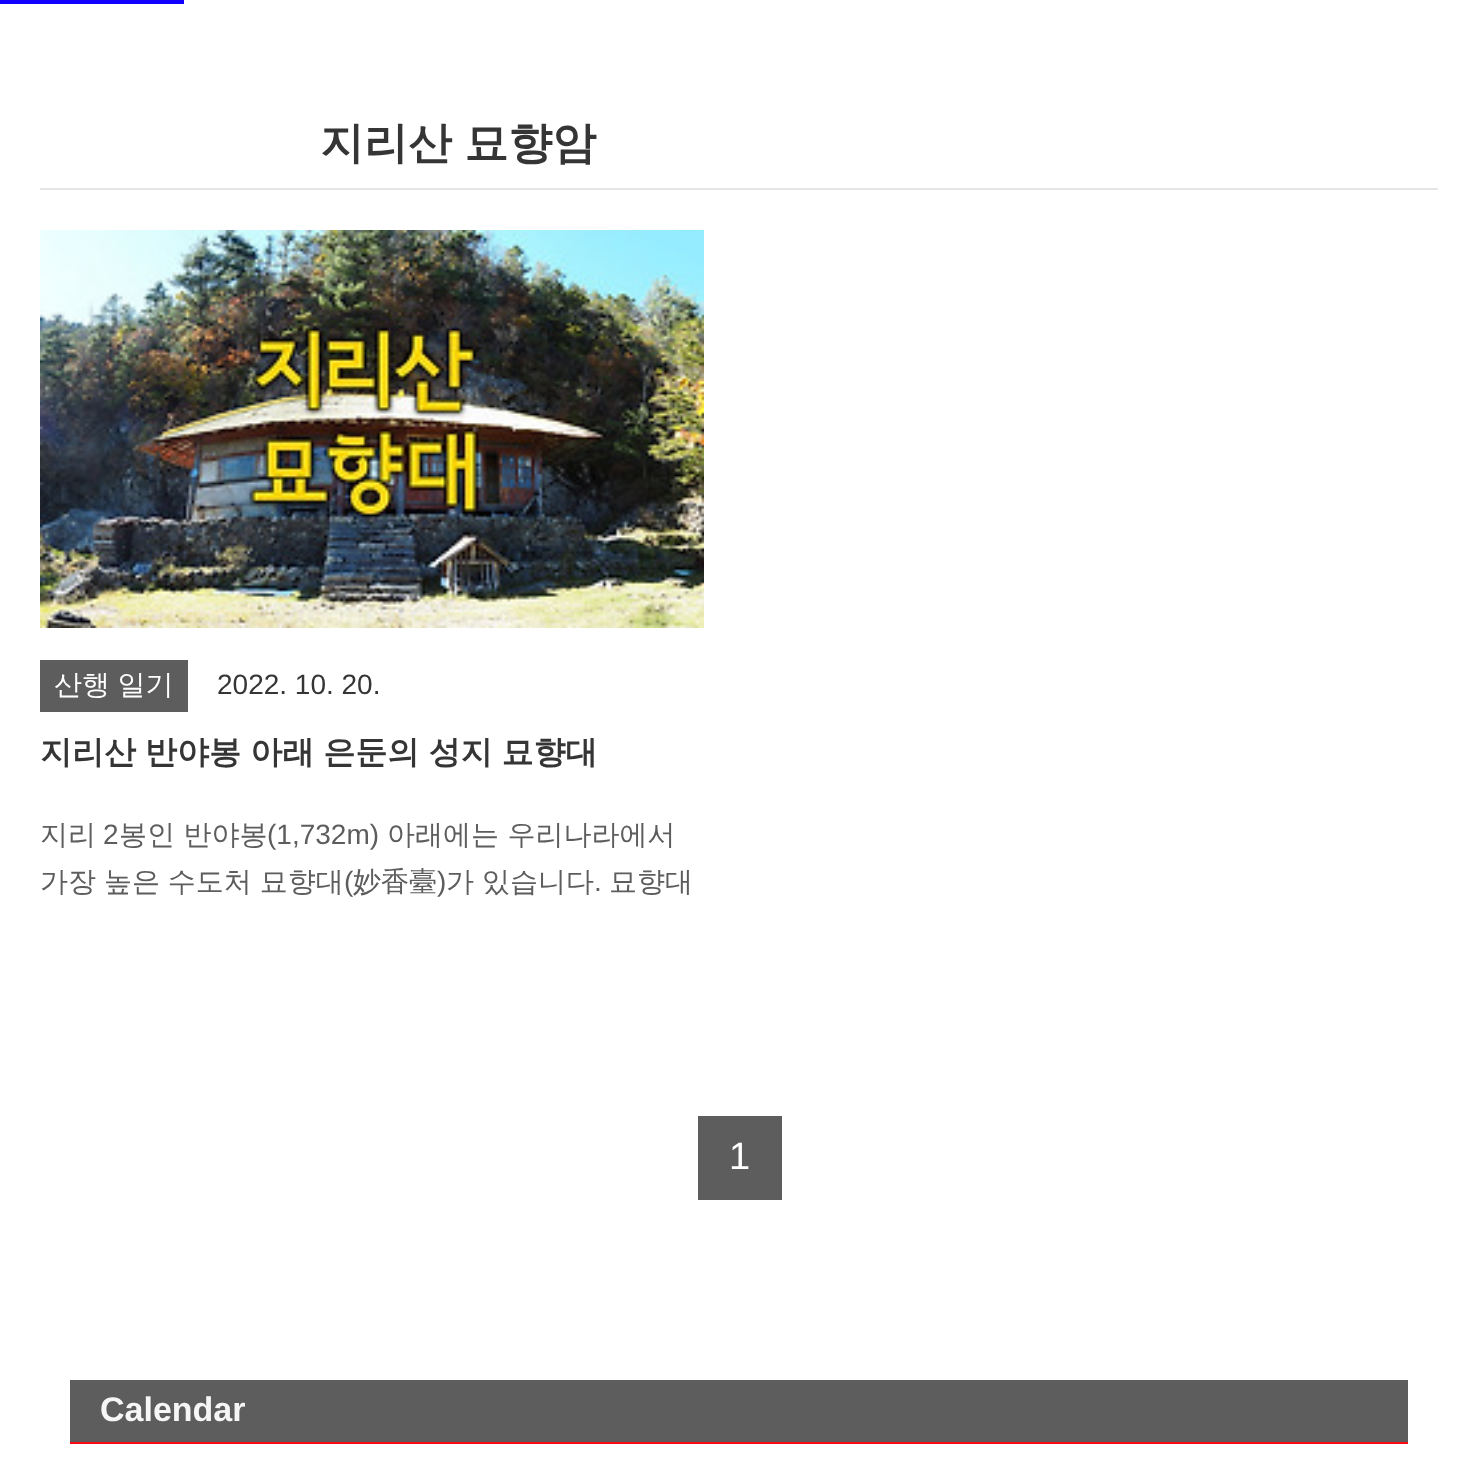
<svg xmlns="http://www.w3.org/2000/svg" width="1477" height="1465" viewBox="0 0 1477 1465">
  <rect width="100%" height="100%" fill="rgb(255,255,255)"/>
  <rect x="0" y="0" width="184" height="4" fill="rgb(17,0,255)"/>
  <rect x="40" y="188" width="1398" height="2" fill="rgb(229,229,229)"/>
  <text x="320" y="158" word-spacing="-1" font-family="WenQuanYi Zen Hei" font-size="44" font-weight="bold" fill="rgb(53,53,53)">지리산 묘향암</text>
  <image x="40" y="230" width="664" height="398" href="pic1.png"/>
  <rect x="40" y="660" width="148" height="52" fill="rgb(93,93,93)"/>
  <text x="54" y="694" word-spacing="-1" font-family="WenQuanYi Zen Hei" font-size="28" font-weight="500" fill="rgb(255,255,255)">산행 일기</text>
  <text x="217" y="694" font-family="Liberation Sans" font-size="28" fill="rgb(53,53,53)">2022. 10. 20.</text>
  <text x="40" y="763" word-spacing="-0.5" font-family="WenQuanYi Zen Hei" font-size="32" font-weight="bold" fill="rgb(53,53,53)">지리산 반야봉 아래 은둔의 성지 묘향대</text>
  <text x="40" y="844" font-family="WenQuanYi Zen Hei" font-size="28" font-weight="500" fill="rgb(93,93,93)">지리</text>
  <text x="103" y="844" font-family="Liberation Sans" font-size="28" fill="rgb(93,93,93)">2</text>
  <text x="119" y="844" font-family="WenQuanYi Zen Hei" font-size="28" font-weight="500" fill="rgb(93,93,93)">봉인 반야봉</text>
  <text x="267" y="844" font-family="Liberation Sans" font-size="28" fill="rgb(93,93,93)">(1,732m)</text>
  <g font-family="WenQuanYi Zen Hei" font-size="28" font-weight="500" fill="rgb(93,93,93)">
    <text x="387" y="844">아래에는 우리나라에서</text>
    <text x="40" y="891" word-spacing="-0.5">가장 높은 수도처 묘향대</text>
  </g>
  <text x="344" y="891" font-family="Liberation Sans" font-size="28" fill="rgb(93,93,93)">(</text>
  <text x="353" y="891" font-family="WenQuanYi Zen Hei" font-size="28" font-weight="500" fill="rgb(93,93,93)">妙香臺</text>
  <text x="437" y="891" font-family="Liberation Sans" font-size="28" fill="rgb(93,93,93)">)</text>
  <text x="446" y="891" word-spacing="-0.5" font-family="WenQuanYi Zen Hei" font-size="28" font-weight="500" fill="rgb(93,93,93)">가 있습니다</text>
  <text x="594" y="891" font-family="Liberation Sans" font-size="28" fill="rgb(93,93,93)">.</text>
  <text x="609" y="891" font-family="WenQuanYi Zen Hei" font-size="28" font-weight="500" fill="rgb(93,93,93)">묘향대</text>
  <rect x="698" y="1116" width="84" height="84" fill="rgb(93,93,93)"/>
  <text x="729" y="1169" font-family="Liberation Sans" font-size="38" fill="rgb(255,255,255)">1</text>
  <rect x="70" y="1380" width="1338" height="62" fill="rgb(93,93,93)"/>
  <rect x="70" y="1442" width="1338" height="2" fill="rgb(248,9,21)"/>
  <text x="100" y="1421" font-family="Liberation Sans" font-size="34" font-weight="bold" fill="rgb(246,246,246)">Calendar</text>
</svg>
